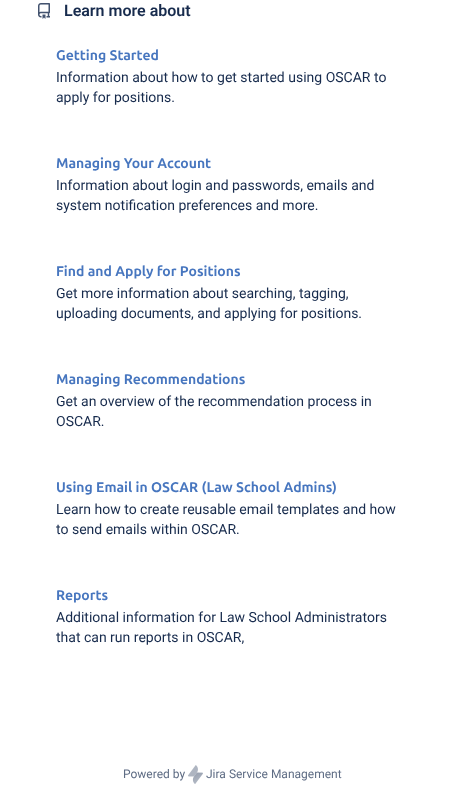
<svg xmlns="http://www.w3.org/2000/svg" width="465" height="807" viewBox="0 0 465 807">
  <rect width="100%" height="100%" fill="rgb(255,255,255)"/>
  <image x="38" y="3" width="12" height="16" href="pic1.png"/>
  <text x="64" y="16" font-family="Roboto" font-size="16" font-weight="600" fill="rgb(23,43,77)">Learn more about</text>
  <text x="56" y="60" font-family="Ubuntu" font-size="14" font-weight="bold" fill="rgb(71,118,191)">Getting Started</text>
  <g font-family="Roboto" font-size="14" fill="rgb(23,43,77)">
    <text>
      <tspan x="56" y="82">Information about how to get started using OSCAR to</tspan>
      <tspan x="56" y="102">apply for positions.</tspan>
    </text>
  </g>
  <text x="56" y="168" font-family="Ubuntu" font-size="14" font-weight="bold" fill="rgb(71,118,191)">Managing Your Account</text>
  <g font-family="Roboto" font-size="14" fill="rgb(23,43,77)">
    <text>
      <tspan x="56" y="190">Information about login and passwords, emails and</tspan>
      <tspan x="56" y="210">system notification preferences and more.</tspan>
    </text>
  </g>
  <text x="56" y="276" font-family="Ubuntu" font-size="14" font-weight="bold" fill="rgb(71,118,191)">Find and Apply for Positions</text>
  <g font-family="Roboto" font-size="14" fill="rgb(23,43,77)">
    <text>
      <tspan x="56" y="298">Get more information about searching, tagging,</tspan>
      <tspan x="56" y="318">uploading documents, and applying for positions.</tspan>
    </text>
  </g>
  <text x="56" y="384" font-family="Ubuntu" font-size="14" font-weight="bold" fill="rgb(71,118,191)">Managing Recommendations</text>
  <g font-family="Roboto" font-size="14" fill="rgb(23,43,77)">
    <text>
      <tspan x="56" y="406">Get an overview of the recommendation process in</tspan>
      <tspan x="56" y="426">OSCAR.</tspan>
    </text>
  </g>
  <text x="56" y="492" font-family="Ubuntu" font-size="14" font-weight="bold" fill="rgb(71,118,191)">Using Email in OSCAR (Law School Admins)</text>
  <g font-family="Roboto" font-size="14" fill="rgb(23,43,77)">
    <text>
      <tspan x="56" y="514">Learn how to create reusable email templates and how</tspan>
      <tspan x="56" y="534">to send emails within OSCAR.</tspan>
    </text>
  </g>
  <text x="56" y="600" font-family="Ubuntu" font-size="14" font-weight="bold" fill="rgb(71,118,191)">Reports</text>
  <g font-family="Roboto" font-size="14" fill="rgb(23,43,77)">
    <text>
      <tspan x="56" y="622">Additional information for Law School Administrators</tspan>
      <tspan x="56" y="642">that can run reports in OSCAR,</tspan>
    </text>
  </g>
  <text x="123" y="778" font-family="Roboto" font-size="12" fill="rgb(94,108,132)">Powered by</text>
  <image x="188" y="765" width="15" height="19" href="pic2.png"/>
  <text x="206" y="778" font-family="Roboto" font-size="12" fill="rgb(94,108,132)">Jira Service Management</text>
</svg>
